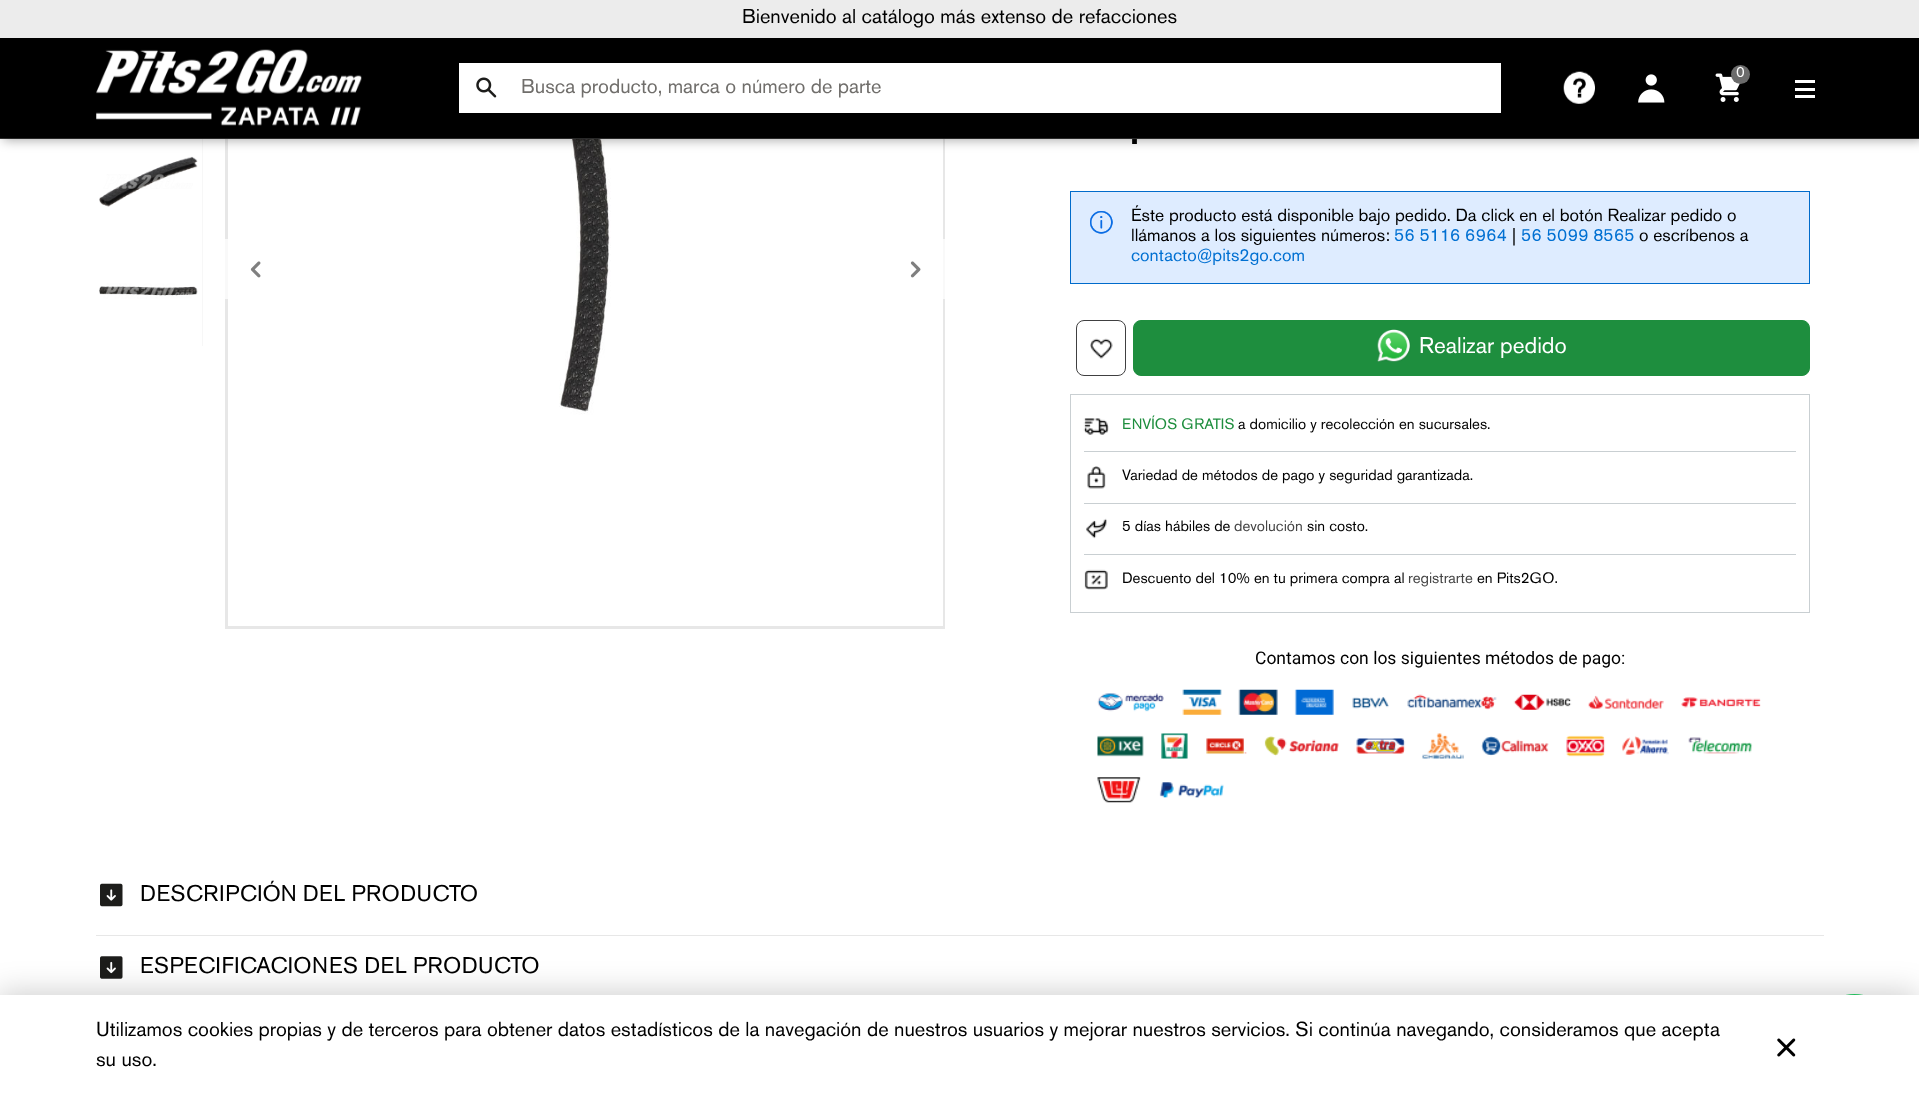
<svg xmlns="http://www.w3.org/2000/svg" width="1919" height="1099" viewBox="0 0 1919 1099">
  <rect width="100%" height="100%" fill="rgb(255,255,255)"/>
  <rect x="226.5" y="-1.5" width="717" height="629" fill="none" stroke="rgb(231,231,231)" stroke-width="3"/>
  <rect x="0" y="138" width="1919" height="1" fill="rgb(52,52,52)"/>
  <rect x="202" y="139" width="1" height="207" fill="rgb(239,239,239)"/>
  <image x="94" y="139" width="109" height="97" href="pic6.png"/>
  <image x="546" y="139" width="397" height="487" href="pic8.png"/>
  <rect x="3" y="3" width="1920" height="137" fill="rgba(0,0,0,0.35)" filter="blur(6px)"/>
  <rect x="0" y="38" width="1919" height="100" fill="rgb(0,0,0)"/>
  <rect x="0" y="0" width="1919" height="38" fill="rgb(236,236,236)"/>
  <text x="742" y="23" font-family="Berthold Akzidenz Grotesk" font-size="20" fill="rgb(0,0,0)">Bienvenido al catálogo más extenso de refacciones</text>
  <image x="96" y="49" width="266" height="77" href="pic1.png"/>
  <image x="1563" y="71" width="32" height="33" href="pic2.png"/>
  <image x="1638" y="74" width="27" height="29" href="pic3.png"/>
  <image x="1715" y="73" width="25" height="29" href="pic4.png"/>
  <circle cx="1740.5" cy="74.5" r="9.5" fill="rgb(107,107,107)"/>
  <text x="1736" y="77" font-family="Berthold Akzidenz Grotesk" font-size="15" fill="rgb(255,255,255)">0</text>
  <rect x="1795" y="88" width="20" height="3" fill="rgb(255,255,255)"/>
  <rect x="1795" y="80" width="20" height="3" fill="rgb(255,255,255)"/>
  <rect x="1795" y="95" width="20" height="3" fill="rgb(255,255,255)"/>
  <rect x="459" y="63" width="1042" height="50" fill="rgb(255,255,255)"/>
  <image x="476" y="77" width="21" height="21" href="pic5.png"/>
  <text x="521" y="93" font-family="Berthold Akzidenz Grotesk" font-size="20" fill="rgb(112,110,107)">Busca producto, marca o número de parte</text>
  <image x="94" y="236" width="109" height="110" href="pic7.png"/>
  <image x="225" y="239" width="36" height="60" href="pic9.png"/>
  <image x="910" y="239" width="35" height="60" href="pic10.png"/>
  <text x="1131" y="144" font-family="Berthold Akzidenz Grotesk" font-size="30" font-weight="bold" fill="rgb(0,0,0)">.</text>
  <rect x="1070.5" y="191.5" width="739" height="92" fill="rgb(222,236,255)" stroke="rgb(0,107,203)"/>
  <image x="1090" y="211" width="23" height="23" href="pic11.png"/>
  <g font-family="Berthold Akzidenz Grotesk" font-size="17.5" fill="rgb(0,0,0)">
    <text>
      <tspan x="1131" y="221">Éste producto está disponible bajo pedido. Da click en el botón Realizar pedido o</tspan>
      <tspan x="1131" y="241">llámanos a los siguientes números:</tspan>
    </text>
  </g>
  <text x="1394" y="241" font-family="Berthold Akzidenz Grotesk" font-size="17.5" fill="rgb(0,112,210)">56 5116 6964</text>
  <text x="1512" y="241" font-family="Berthold Akzidenz Grotesk" font-size="17.5" fill="rgb(0,0,0)">|</text>
  <text x="1521" y="241" font-family="Berthold Akzidenz Grotesk" font-size="17.5" fill="rgb(0,112,210)">56 5099 8565</text>
  <text x="1639" y="241" font-family="Berthold Akzidenz Grotesk" font-size="17.5" fill="rgb(0,0,0)">o escríbenos a</text>
  <text x="1131" y="261" font-family="Berthold Akzidenz Grotesk" font-size="17.5" fill="rgb(0,112,210)">contacto@pits2go.com</text>
  <rect x="1076.5" y="320.5" width="49" height="55" rx="7.5" fill="none" stroke="rgb(64,64,65)"/>
  <image x="1090" y="338" width="23" height="21" href="pic12.png"/>
  <rect x="1133.5" y="320.5" width="676" height="55" rx="7.5" fill="rgb(30,142,62)" stroke="rgb(30,142,62)"/>
  <image x="1377" y="329" width="34" height="33" href="pic13.png"/>
  <text x="1419" y="353" font-family="Berthold Akzidenz Grotesk" font-size="22.5" fill="rgb(255,255,255)">Realizar pedido</text>
  <rect x="1070.5" y="394.5" width="739" height="218" fill="none" stroke="rgb(201,207,210)"/>
  <rect x="1084" y="451" width="712" height="1" fill="rgb(201,207,210)"/>
  <image x="1083" y="418" width="26" height="17" href="pic14.png"/>
  <text x="1122" y="429" font-family="Berthold Akzidenz Grotesk" font-size="15" fill="rgb(30,142,62)">ENVÍOS GRATIS</text>
  <text x="1238" y="429" font-family="Berthold Akzidenz Grotesk" font-size="15" fill="rgb(0,0,0)">a domicilio y recolección en sucursales.</text>
  <rect x="1084" y="503" width="712" height="1" fill="rgb(201,207,210)"/>
  <image x="1087" y="466" width="19" height="23" href="pic15.png"/>
  <text x="1122" y="480" font-family="Berthold Akzidenz Grotesk" font-size="15" fill="rgb(0,0,0)">Variedad de métodos de pago y seguridad garantizada.</text>
  <rect x="1084" y="554" width="712" height="1" fill="rgb(201,207,210)"/>
  <image x="1086" y="518" width="21" height="21" href="pic16.png"/>
  <text x="1122" y="531" font-family="Berthold Akzidenz Grotesk" font-size="15" fill="rgb(0,0,0)">5 días hábiles de</text>
  <text x="1234" y="531" font-family="Berthold Akzidenz Grotesk" font-size="15" fill="rgb(68,68,68)">devolución</text>
  <text x="1307" y="531" font-family="Berthold Akzidenz Grotesk" font-size="15" fill="rgb(0,0,0)">sin costo.</text>
  <image x="1084" y="569" width="24" height="21" href="pic17.png"/>
  <text x="1122" y="583" font-family="Berthold Akzidenz Grotesk" font-size="15" fill="rgb(0,0,0)">Descuento del 10% en tu primera compra al</text>
  <text x="1408" y="583" font-family="Berthold Akzidenz Grotesk" font-size="15" fill="rgb(68,68,68)">registrarte</text>
  <text x="1477" y="583" font-family="Berthold Akzidenz Grotesk" font-size="15" fill="rgb(0,0,0)">en Pits2GO.</text>
  <text x="1255" y="664" font-family="Roboto" font-size="17.5" fill="rgb(0,0,0)">Contamos con los siguientes métodos de pago:</text>
  <image x="1097" y="689" width="664" height="114" href="pic18.png"/>
  <rect x="96" y="935" width="1728" height="1" fill="rgb(231,231,231)"/>
  <image x="100" y="883" width="23" height="24" href="pic19.png"/>
  <text x="140" y="901" font-family="Berthold Akzidenz Grotesk" font-size="22.5" fill="rgb(0,0,0)">DESCRIPCIÓN DEL PRODUCTO</text>
  <image x="100" y="956" width="23" height="23" href="pic20.png"/>
  <text x="140" y="973" font-family="Berthold Akzidenz Grotesk" font-size="22.5" fill="rgb(0,0,0)">ESPECIFICACIONES DEL PRODUCTO</text>
  <image x="1846" y="994" width="17" height="1" href="pic21.png"/>
  <rect x="-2" y="993" width="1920" height="105" fill="rgba(0,0,0,0.2)" filter="blur(15.5px)"/>
  <rect x="0" y="995" width="1919" height="104" fill="rgb(255,255,255)"/>
  <g font-family="Berthold Akzidenz Grotesk" font-size="20" fill="rgb(0,0,0)">
    <text>
      <tspan x="96" y="1036">Utilizamos cookies propias y de terceros para obtener datos estadísticos de la navegación de nuestros usuarios y mejorar nuestros servicios. Si continúa navegando, consideramos que acepta</tspan>
      <tspan x="96" y="1066">su uso.</tspan>
    </text>
  </g>
  <image x="1777" y="1038" width="19" height="19" href="pic22.png"/>
</svg>
